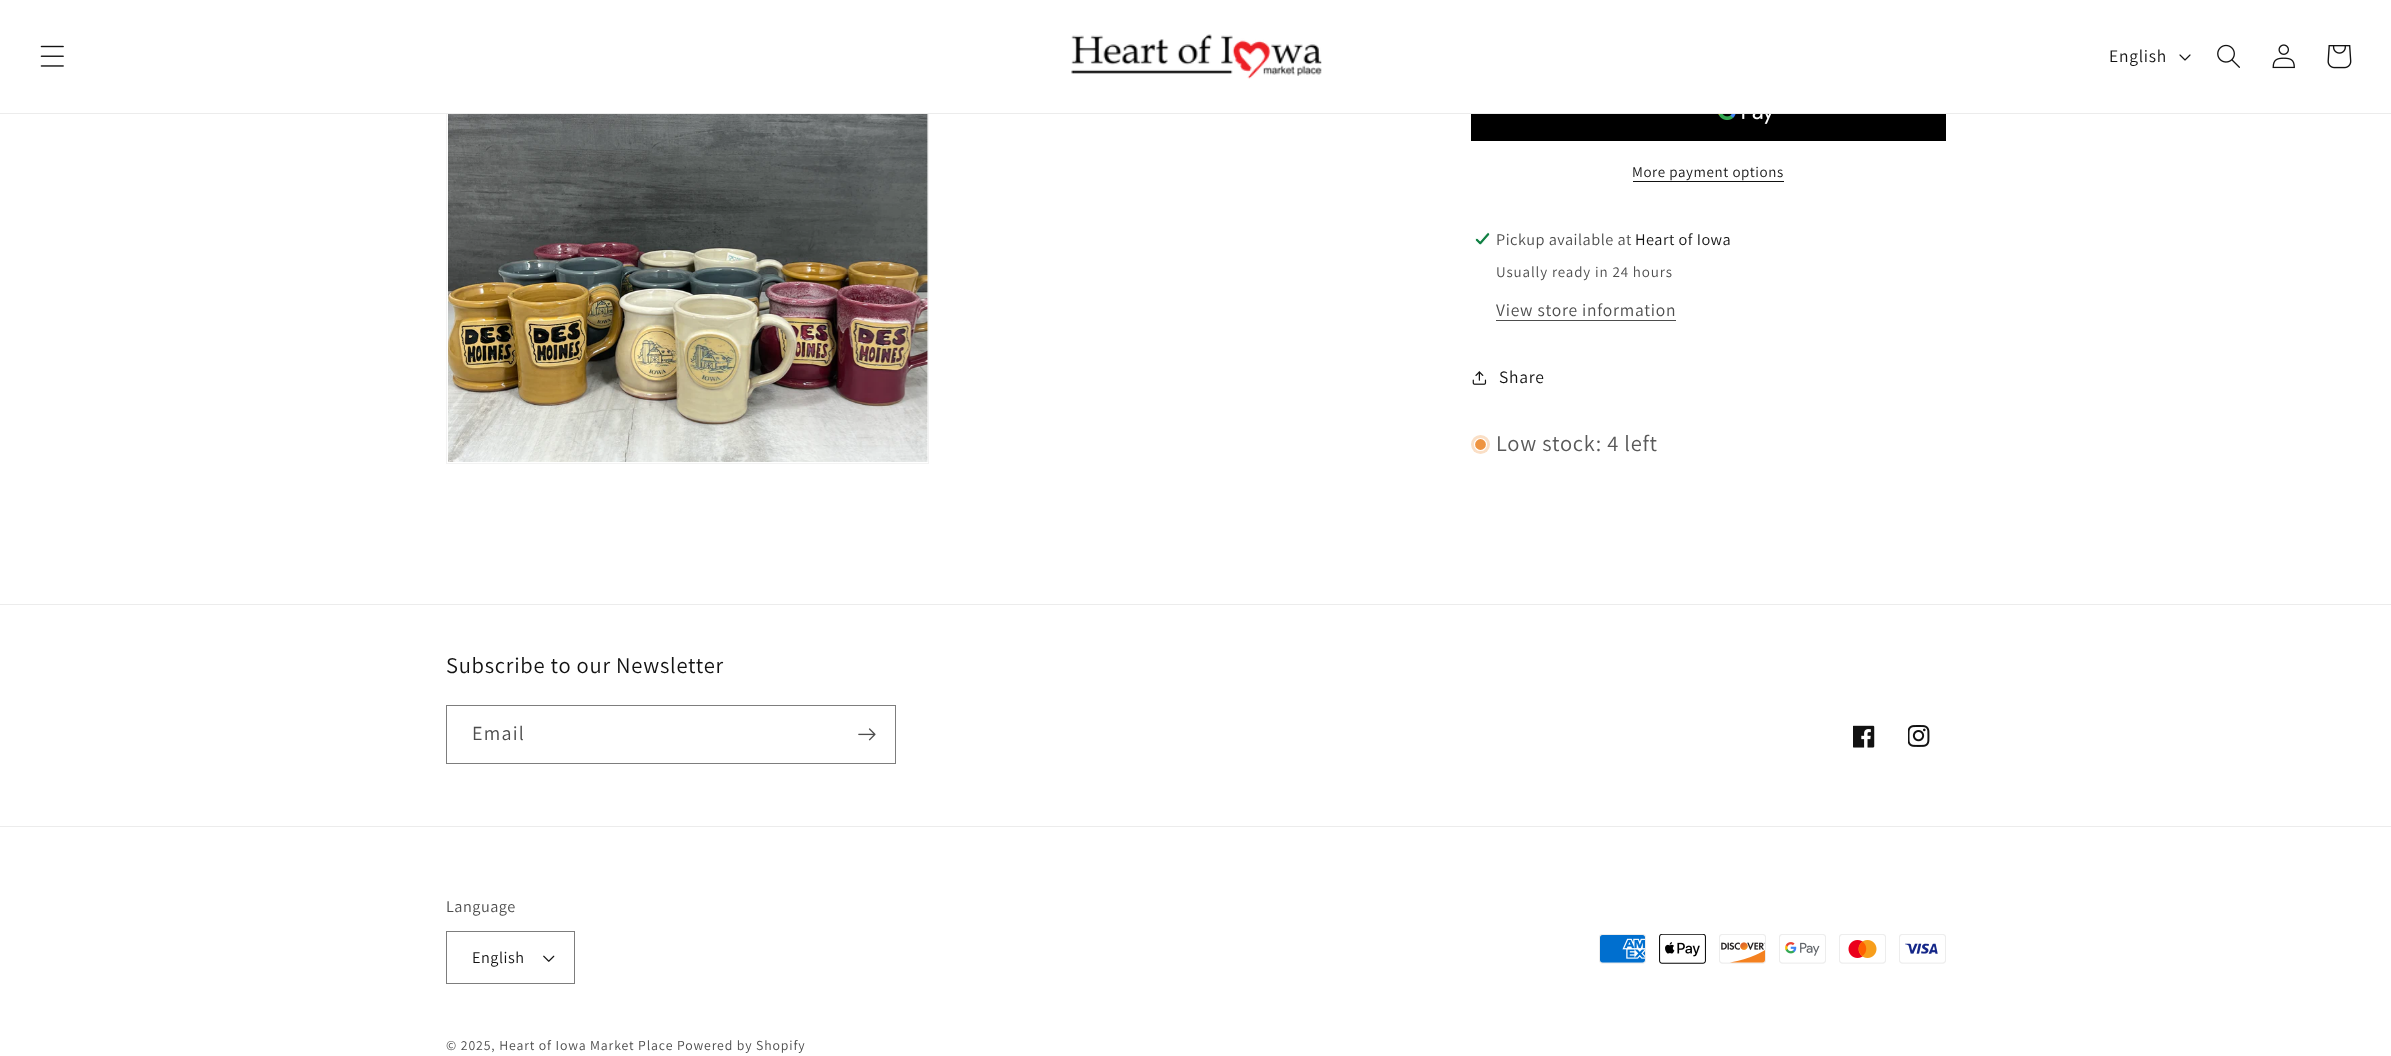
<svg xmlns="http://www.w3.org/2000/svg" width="2391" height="1056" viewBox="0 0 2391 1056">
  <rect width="100%" height="100%" fill="rgb(255,255,255)"/>
  <rect x="446.5" y="101.5" width="482" height="362" fill="none" stroke="rgb(243,243,243)"/>
  <rect x="446" y="101" width="483" height="12" fill="rgb(255,255,255)"/>
  <rect x="0" y="113" width="2391" height="1" fill="rgb(236,236,236)"/>
  <image x="40" y="45" width="24" height="22" href="pic1.png"/>
  <image x="1071" y="34" width="251" height="45" href="pic2.png"/>
  <text x="2109" y="62" font-family="Assistant" font-size="17.5" letter-spacing="0.75" fill="rgb(18,18,18)">English</text>
  <image x="2179" y="54" width="12" height="7" href="pic3.png"/>
  <image x="2217" y="44" width="23" height="24" href="pic4.png"/>
  <image x="2272" y="44" width="23" height="25" href="pic5.png"/>
  <image x="2327" y="45" width="25" height="24" href="pic6.png"/>
  <image x="448" y="114" width="480" height="348" href="pic7.png"/>
  <rect x="1471" y="114" width="475" height="27" fill="rgb(0,0,0)"/>
  <image x="1718" y="114" width="53" height="10" href="pic8.png"/>
  <text x="1632" y="177" font-family="Assistant" font-size="15" letter-spacing="0.6" fill="rgb(18,18,18)">More payment options</text>
  <rect x="1633" y="181" width="151" height="1" fill="rgb(18,18,18)"/>
  <image x="1475" y="232" width="15" height="13" href="pic9.png"/>
  <text x="1496" y="245" font-family="Assistant" font-size="16.25" letter-spacing="0.5" fill="rgb(77,77,77)">Pickup available at</text>
  <text x="1635" y="245" font-family="Assistant" font-size="16.25" letter-spacing="0.5" fill="rgb(18,18,18)">Heart of Iowa</text>
  <text x="1496" y="277" font-family="Assistant" font-size="15" letter-spacing="0.88" fill="rgb(77,77,77)">Usually ready in 24 hours</text>
  <text x="1496" y="316" font-family="Assistant" font-size="17.5" letter-spacing="0.75" fill="rgb(77,77,77)">View store information</text>
  <rect x="1496" y="320" width="180" height="1" fill="rgb(77,77,77)"/>
  <image x="1472" y="371" width="15" height="14" href="pic10.png"/>
  <text x="1499" y="383" font-family="Assistant" font-size="17.5" letter-spacing="0.75" fill="rgb(18,18,18)">Share</text>
  <circle cx="1480.5" cy="444.5" r="9.5" fill="rgb(250,223,198)"/>
  <circle cx="1480.5" cy="444.5" r="6" fill="rgb(238,148,65)" stroke="rgb(255,255,255)" stroke-width="1.2"/>
  <text x="1496" y="451" font-family="Assistant" font-size="22.5" letter-spacing="0.75" fill="rgb(89,89,89)">Low stock: 4 left</text>
  <rect x="0" y="604" width="2391" height="1" fill="rgb(236,236,236)"/>
  <text x="446" y="673" font-family="Assistant" font-size="22.5" letter-spacing="0.75" fill="rgb(18,18,18)">Subscribe to our Newsletter</text>
  <rect x="446.5" y="705.5" width="449" height="58" fill="none" stroke="rgb(125,125,125)"/>
  <text x="472" y="740" font-family="Assistant" font-size="20" letter-spacing="1.25" fill="rgb(77,77,77)">Email</text>
  <image x="858" y="728" width="18" height="13" href="pic11.png"/>
  <image x="1853" y="725" width="22" height="23" href="pic12.png"/>
  <image x="1908" y="725" width="22" height="22" href="pic13.png"/>
  <rect x="0" y="826" width="2391" height="1" fill="rgb(236,236,236)"/>
  <text x="446" y="912" font-family="Assistant" font-size="16.25" letter-spacing="0.5" fill="rgb(77,77,77)">Language</text>
  <image x="543" y="955" width="12" height="7" href="pic14.png"/>
  <rect x="446.5" y="931.5" width="128" height="52" fill="none" stroke="rgb(125,125,125)"/>
  <text x="472" y="963" font-family="Assistant" font-size="16.25" letter-spacing="0.5" fill="rgb(18,18,18)">English</text>
  <image x="1599" y="934" width="47" height="30" href="pic15.png"/>
  <image x="1659" y="934" width="47" height="30" href="pic16.png"/>
  <image x="1719" y="934" width="47" height="30" href="pic17.png"/>
  <image x="1779" y="934" width="47" height="30" href="pic18.png"/>
  <image x="1839" y="934" width="47" height="30" href="pic19.png"/>
  <image x="1899" y="934" width="47" height="30" href="pic20.png"/>
  <text x="446" y="1050" font-family="Assistant" font-size="13.75" letter-spacing="0.88" fill="rgb(77,77,77)">© 2025, Heart of Iowa Market Place Powered by Shopify</text>
</svg>
